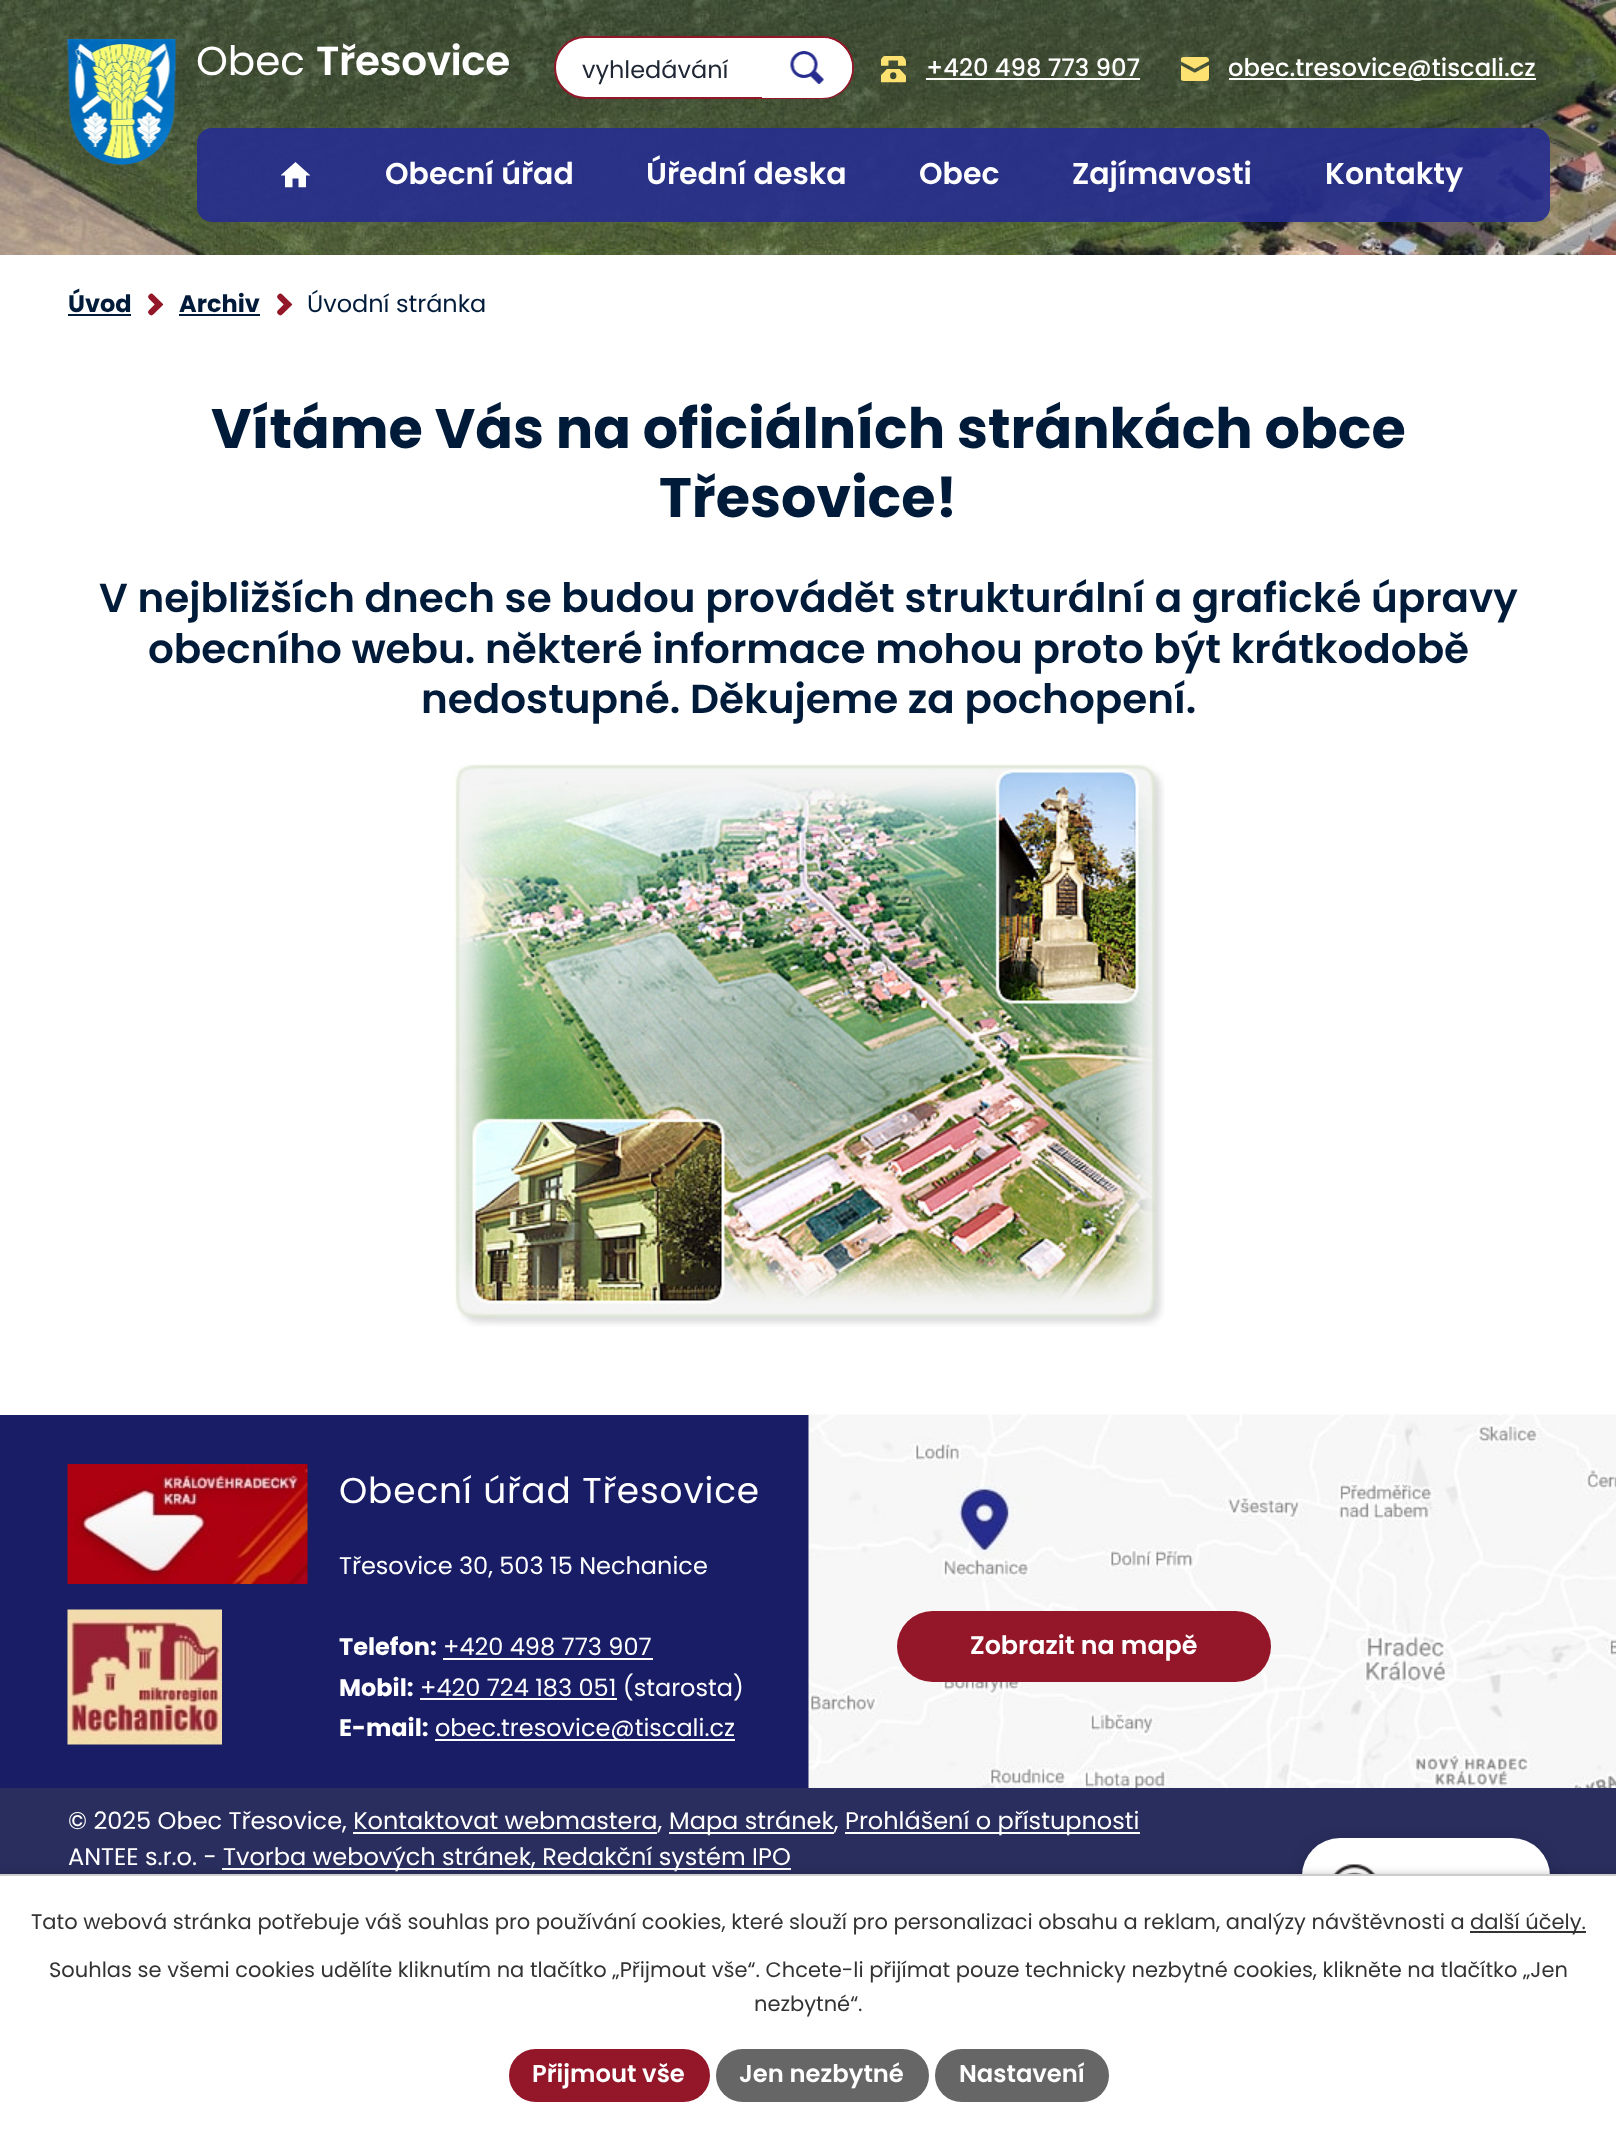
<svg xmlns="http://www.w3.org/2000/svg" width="1616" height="2130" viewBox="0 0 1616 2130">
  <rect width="100%" height="100%" fill="rgb(255,255,255)"/>
  <image x="0" y="0" width="1616" height="255" href="pic1.png"/>
  <image x="67" y="39" width="109" height="126" href="pic2.png"/>
  <text x="196" y="75" font-family="Poppins" font-size="40.5" fill="rgb(255,255,255)">Obec</text>
  <text x="316" y="75" font-family="Poppins" font-size="40.5" font-weight="600" letter-spacing="-0.4" fill="rgb(255,255,255)">Třesovice</text>
  <rect x="555" y="37" width="298" height="61" rx="30.5" fill="rgb(255,255,255)" stroke="rgb(148,22,41)" stroke-width="2"/>
  <text x="582" y="78" font-family="Poppins" font-size="24" fill="rgb(32,39,52)">vyhledávání</text>
  <path d="M762 38H822C838.5 38 852 51.5 852 68C852 84.5 838.5 98 822 98H762Z" fill="rgb(255,255,255)"/>
  <image x="790" y="51" width="34" height="33" href="pic3.png"/>
  <image x="881" y="56" width="25" height="27" href="pic4.png"/>
  <text x="926" y="76" font-family="Poppins" font-size="24.25" font-weight="500" fill="rgb(255,255,255)">+420 498 773 907</text>
  <rect x="926" y="78" width="214" height="2" fill="rgb(255,255,255)"/>
  <image x="1181" y="57" width="28" height="24" href="pic5.png"/>
  <rect x="1229" y="78" width="307" height="2" fill="rgb(255,255,255)"/>
  <text x="1228" y="76" font-family="Poppins" font-size="24.25" font-weight="500" fill="rgb(255,255,255)">obec.tresovice@tiscali.cz</text>
  <rect x="197" y="128" width="1353" height="94" rx="15" fill="rgba(38,45,143,0.9)"/>
  <image x="281" y="162" width="30" height="26" href="pic6.png"/>
  <g font-family="Poppins" font-size="30" font-weight="600" fill="rgb(255,255,255)">
    <text x="385" y="184">Obecní úřad</text>
    <text x="646" y="184">Úřední deska</text>
    <text x="919" y="184">Obec</text>
    <text x="1072" y="184">Zajímavosti</text>
    <text x="1325" y="184">Kontakty</text>
  </g>
  <text x="68" y="312" font-family="Poppins" font-size="24" font-weight="bold" fill="rgb(0,27,57)">Úvod</text>
  <rect x="68" y="314" width="63" height="2" fill="rgb(0,27,57)"/>
  <image x="148" y="293" width="16" height="23" href="pic7.png"/>
  <text x="179" y="312" font-family="Poppins" font-size="24" font-weight="bold" fill="rgb(0,27,57)">Archiv</text>
  <rect x="179" y="314" width="81" height="2" fill="rgb(0,27,57)"/>
  <image x="277" y="293" width="16" height="23" href="pic7.png"/>
  <text x="307" y="312" font-family="Poppins" font-size="24" fill="rgb(0,27,57)">Úvodní stránka</text>
  <g font-family="Poppins" font-size="55.6" font-weight="bold" fill="rgb(0,27,57)">
    <text x="211" y="448">Vítáme Vás na oficiálních stránkách obce</text>
    <text x="659" y="517">Třesovice!</text>
  </g>
  <g font-family="Poppins" font-size="40.5" font-weight="600" fill="rgb(0,27,57)">
    <text x="99" y="612">V nejbližších dnech se budou provádět strukturální a grafické úpravy</text>
    <text x="148" y="663">obecního webu. některé informace mohou proto být krátkodobě</text>
    <text x="421" y="713">nedostupné. Děkujeme za pochopení.</text>
  </g>
  <image x="454" y="764" width="711" height="563" href="pic8.png"/>
  <rect x="0" y="1788" width="1616" height="86" fill="rgb(42,46,94)"/>
  <rect x="1302" y="1842" width="248" height="225" rx="38" fill="rgba(0,0,0,0.2)" filter="blur(7.5px)"/>
  <rect x="1302" y="1838" width="248" height="225" rx="38" fill="rgb(255,255,255)"/>
  <image x="1333" y="1864" width="43" height="10" href="pic9.png"/>
  <rect x="0" y="1415" width="809" height="373" fill="rgb(24,29,101)"/>
  <image x="67" y="1464" width="241" height="120" href="pic10.png"/>
  <image x="67" y="1609" width="155" height="136" href="pic11.png"/>
  <text x="339" y="1503" font-family="Poppins" font-size="35.9" letter-spacing="0.9" fill="rgb(255,255,255)">Obecní úřad Třesovice</text>
  <text x="339" y="1574" font-family="Poppins" font-size="24" fill="rgb(255,255,255)">Třesovice 30, 503 15 Nechanice</text>
  <text x="339" y="1655" font-family="Poppins" font-size="24" font-weight="bold" fill="rgb(255,255,255)">Telefon:</text>
  <text x="443" y="1655" font-family="Poppins" font-size="24" fill="rgb(255,255,255)">+420 498 773 907</text>
  <rect x="443" y="1658" width="210" height="2" fill="rgb(255,255,255)"/>
  <text x="339" y="1696" font-family="Poppins" font-size="24" font-weight="bold" fill="rgb(255,255,255)">Mobil:</text>
  <rect x="420" y="1698" width="197" height="2" fill="rgb(255,255,255)"/>
  <text x="420" y="1696" font-family="Poppins" font-size="24" fill="rgb(255,255,255)">+420 724 183 051 (starosta)</text>
  <text x="339" y="1736" font-family="Poppins" font-size="24" font-weight="bold" fill="rgb(255,255,255)">E-mail:</text>
  <rect x="435" y="1739" width="300" height="2" fill="rgb(255,255,255)"/>
  <text x="435" y="1736" font-family="Poppins" font-size="24" fill="rgb(255,255,255)">obec.tresovice@tiscali.cz</text>
  <image x="808" y="1414" width="808" height="374" href="pic12.png"/>
  <rect x="897" y="1611" width="374" height="71" rx="35.5" fill="rgb(148,22,41)"/>
  <text x="970" y="1654" font-family="Poppins" font-size="25.4" font-weight="600" fill="rgb(255,255,255)">Zobrazit na mapě</text>
  <text x="68" y="1829" font-family="Poppins" font-size="24" fill="rgb(255,255,255)">© 2025 Obec Třesovice, Kontaktovat webmastera,</text>
  <rect x="669" y="1832" width="165" height="2" fill="rgb(255,255,255)"/>
  <text x="669" y="1829" font-family="Poppins" font-size="24" fill="rgb(255,255,255)">Mapa stránek,</text>
  <rect x="845" y="1832" width="295" height="2" fill="rgb(255,255,255)"/>
  <text x="845" y="1829" font-family="Poppins" font-size="24" fill="rgb(255,255,255)">Prohlášení o přístupnosti</text>
  <rect x="353" y="1832" width="304" height="2" fill="rgb(255,255,255)"/>
  <text x="68" y="1865" font-family="Poppins" font-size="24" fill="rgb(255,255,255)">ANTEE s.r.o. -</text>
  <rect x="222" y="1868" width="569" height="2" fill="rgb(255,255,255)"/>
  <text x="223" y="1865" font-family="Poppins" font-size="24" fill="rgb(255,255,255)">Tvorba webových stránek, Redakční systém IPO</text>
  <rect x="0" y="1874" width="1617" height="256" fill="rgba(0,0,0,0.2)" filter="blur(4px)"/>
  <rect x="0" y="1876" width="1616" height="254" fill="rgb(255,255,255)"/>
  <rect x="0" y="1874" width="1616" height="2" fill="rgb(204,204,204)"/>
  <text x="31" y="1929" font-family="Poppins" font-size="21" fill="rgb(51,51,51)">Tato webová stránka potřebuje váš souhlas pro používání cookies, které slouží pro personalizaci obsahu a reklam, analýzy návštěvnosti a</text>
  <rect x="1470" y="1931" width="116" height="2" fill="rgb(51,51,51)"/>
  <g font-family="Poppins" font-size="21" fill="rgb(51,51,51)">
    <text x="1470" y="1929">další účely.</text>
    <text x="49" y="1977">Souhlas se všemi cookies udělíte kliknutím na tlačítko „Přijmout vše“. Chcete-li přijímat pouze technicky nezbytné cookies, klikněte na tlačítko „Jen</text>
    <text x="754" y="2011">nezbytné“.</text>
  </g>
  <rect x="509" y="2049" width="201" height="53" rx="26.5" fill="rgb(148,22,41)"/>
  <text x="532" y="2082" font-family="Poppins" font-size="24.25" font-weight="600" fill="rgb(255,255,255)">Přijmout vše</text>
  <rect x="716" y="2049" width="213" height="53" rx="26.5" fill="rgb(102,102,102)"/>
  <text x="739" y="2082" font-family="Poppins" font-size="24.25" font-weight="600" fill="rgb(255,255,255)">Jen nezbytné</text>
  <rect x="935" y="2049" width="174" height="53" rx="26.5" fill="rgb(102,102,102)"/>
  <text x="959" y="2082" font-family="Poppins" font-size="24.25" font-weight="600" fill="rgb(255,255,255)">Nastavení</text>
</svg>
